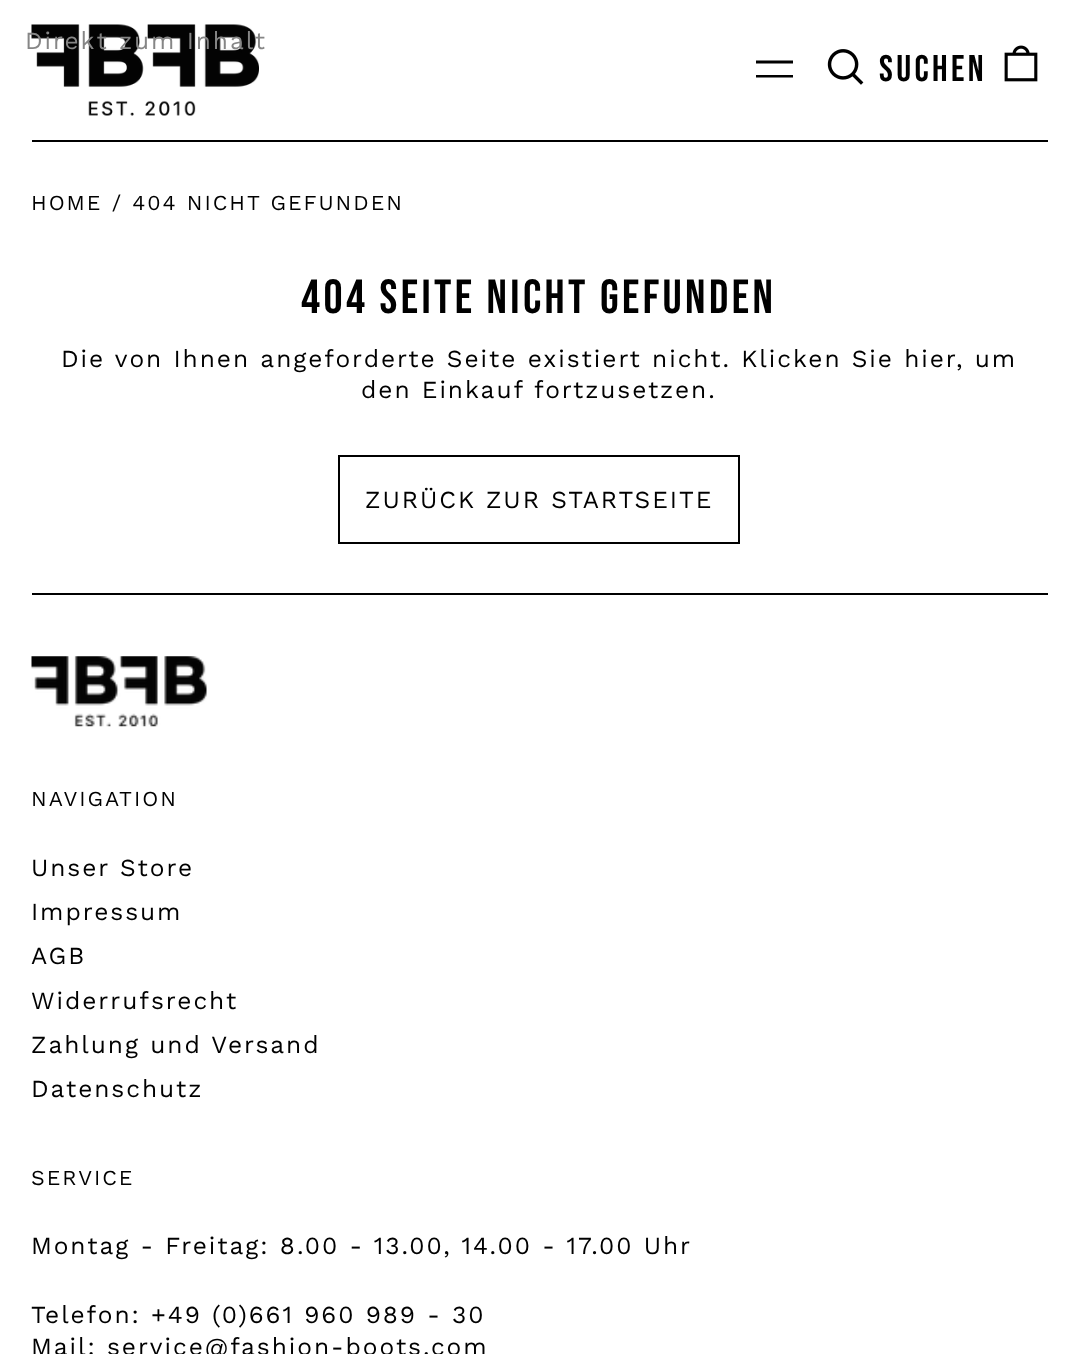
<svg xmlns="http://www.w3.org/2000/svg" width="1077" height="1354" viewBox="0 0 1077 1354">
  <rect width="100%" height="100%" fill="rgb(255,255,255)"/>
  <image x="31" y="24" width="228" height="92" href="pic1.png"/>
  <text x="25" y="49" font-family="Work Sans" font-size="24.5" letter-spacing="1.95" fill="rgb(134,134,134)">Direkt zum Inhalt</text>
  <rect x="32" y="140" width="1016" height="2" fill="rgb(0,0,0)"/>
  <path d="M793 75V77.5H756V75ZM793 60.5V63.5H756V60.5Z" fill="rgb(0,0,0)" fill-rule="evenodd"/>
  <image x="827" y="49" width="37" height="36" href="pic2.png"/>
  <text x="879" y="81" font-family="Bebas Neue" font-size="37" letter-spacing="3.4" fill="rgb(0,0,0)">SUCHEN</text>
  <image x="1004" y="45" width="34" height="37" href="pic3.png"/>
  <text x="31" y="210" font-family="Work Sans" font-size="21.4" letter-spacing="1.95" fill="rgb(0,0,0)">HOME / 404 NICHT GEFUNDEN</text>
  <text x="301" y="313" font-family="Bebas Neue" font-size="47.75" letter-spacing="3.4" fill="rgb(0,0,0)">404 SEITE NICHT GEFUNDEN</text>
  <g font-family="Work Sans" font-size="24.5" letter-spacing="1.95" fill="rgb(0,0,0)">
    <text x="61" y="367">Die von Ihnen angeforderte Seite existiert nicht. Klicken Sie hier</text>
    <text x="956" y="367">, um</text>
    <text x="361" y="398">den Einkauf fortzusetzen.</text>
  </g>
  <rect x="339" y="456" width="400" height="87" fill="none" stroke="rgb(0,0,0)" stroke-width="2"/>
  <text x="365" y="508" font-family="Work Sans" font-size="24.5" letter-spacing="1.95" fill="rgb(0,0,0)">ZURÜCK ZUR STARTSEITE</text>
  <rect x="32" y="593" width="1016" height="2" fill="rgb(0,0,0)"/>
  <image x="31" y="656" width="176" height="71" href="pic4.png"/>
  <text x="31" y="806" font-family="Work Sans" font-size="21.4" letter-spacing="1.95" fill="rgb(0,0,0)">NAVIGATION</text>
  <g font-family="Work Sans" font-size="24.5" letter-spacing="1.95" fill="rgb(0,0,0)">
    <text>
      <tspan x="31" y="876">Unser Store</tspan>
      <tspan x="31" y="920">Impressum</tspan>
      <tspan x="31" y="964">AGB</tspan>
      <tspan x="31" y="1009">Widerrufsrecht</tspan>
      <tspan x="31" y="1053">Zahlung und Versand</tspan>
      <tspan x="31" y="1097">Datenschutz</tspan>
    </text>
  </g>
  <text x="31" y="1185" font-family="Work Sans" font-size="21.4" letter-spacing="1.95" fill="rgb(0,0,0)">SERVICE</text>
  <g font-family="Work Sans" font-size="24.5" letter-spacing="1.95" fill="rgb(0,0,0)">
    <text x="31" y="1254">Montag - Freitag: 8.00 - 13.00, 14.00 - 17.00 Uhr</text>
    <text>
      <tspan x="31" y="1323">Telefon: +49 (0)661 960 989 - 30</tspan>
      <tspan x="31" y="1355">Mail: service@fashion-boots.com</tspan>
    </text>
  </g>
</svg>
